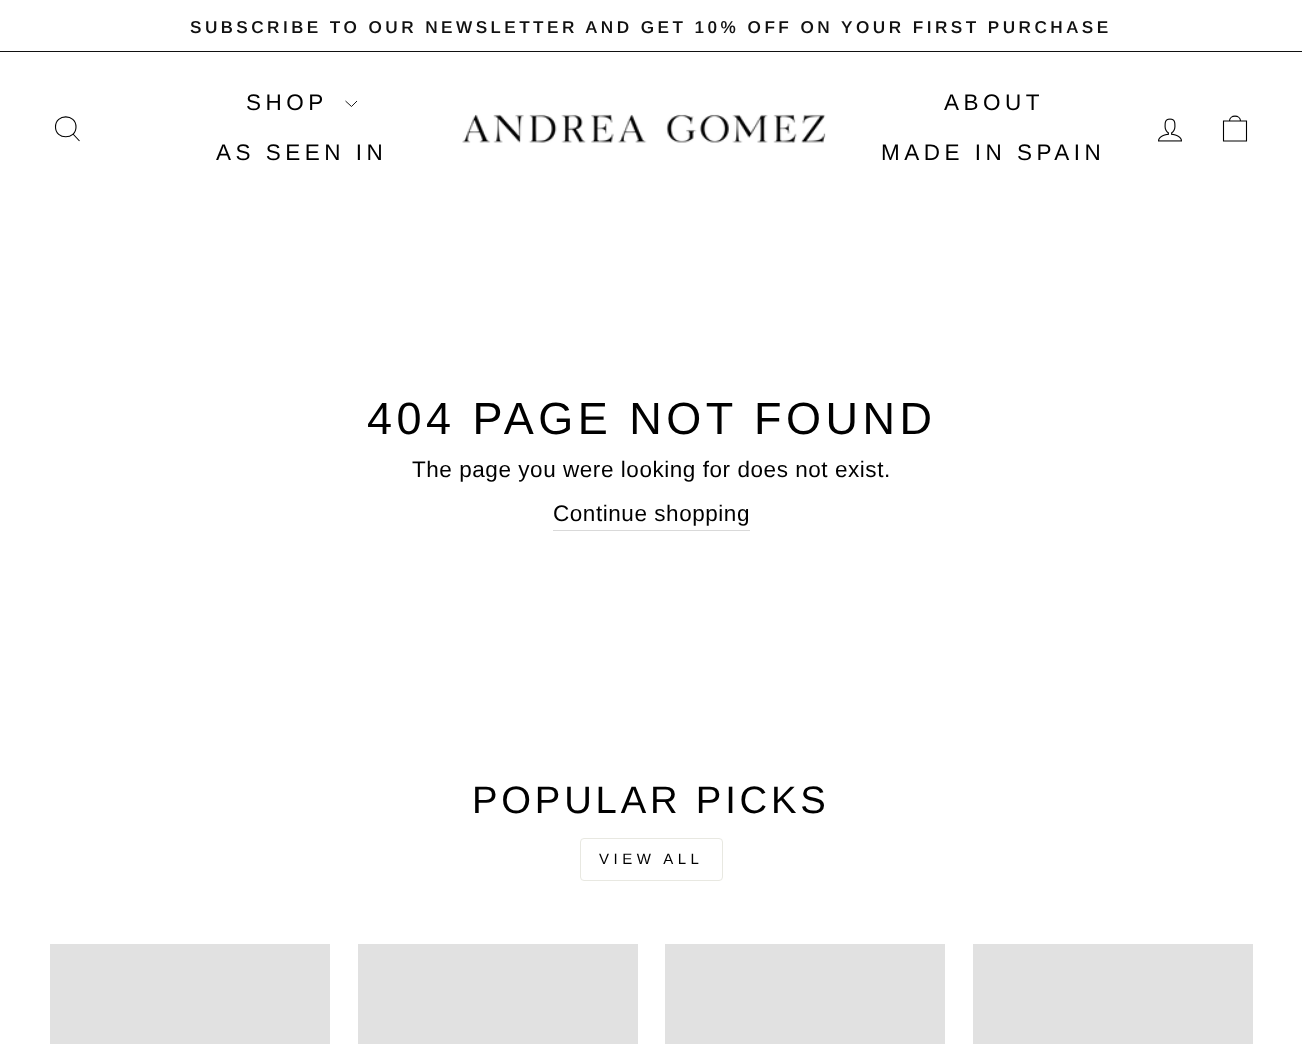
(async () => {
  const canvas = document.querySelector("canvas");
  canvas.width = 1302;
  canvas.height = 1044;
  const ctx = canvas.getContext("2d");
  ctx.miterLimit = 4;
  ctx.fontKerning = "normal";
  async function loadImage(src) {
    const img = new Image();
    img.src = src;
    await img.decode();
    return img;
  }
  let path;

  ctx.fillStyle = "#ffffff";
  ctx.fillRect(0, 0, 1302, 1044);
  ctx.fillStyle = "#111111";
  ctx.fillRect(0, 51, 1302, 1);
  ctx.fillStyle = "rgba(0, 0, 0, 0.2)";
  ctx.filter = "blur(0.5px)";
  ctx.beginPath();
  ctx.rect(0, 53, 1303, 151);
  ctx.fill();
  ctx.filter = "none";
  ctx.fillStyle = "#ffffff";
  ctx.fillRect(0, 53, 1302, 151);
  path = new Path2D("M76 127C76 140 55.5 140 55.5 127C55.5 113.5 76 113.5 76 127ZM79.5 141L73 134");
  ctx.strokeStyle = "#000000";
  ctx.lineWidth = 1.1;
  ctx.stroke(path);
  path = new Path2D("M345.5 101L351.5 106.5L357 101");
  ctx.lineWidth = 0.9;
  ctx.stroke(path);
  ctx.drawImage(await loadImage("img/1.png"), 462, 114, 364, 29);
  ctx.drawImage(await loadImage("img/2.png"), 1158, 118, 24, 24);
  path = new Path2D("M1223.5 121H1246.5V141H1223.5ZM1229.5 121C1229.5 114.5 1240.5 114.5 1240.5 121");
  ctx.lineWidth = 1.1;
  ctx.stroke(path);
  ctx.fillStyle = "#d9d9d9";
  ctx.fillRect(553, 530, 197, 1);
  ctx.beginPath();
  ctx.roundRect(580.5, 838.5, 142, 42, 3.5);
  ctx.strokeStyle = "#e8e8e1";
  ctx.lineWidth = 1;
  ctx.stroke();
  for (const [x, y, w, h, color] of [
    [50, 944, 280, 100, "#e1e1e1"],
    [358, 944, 280, 100, "#e1e1e1"],
    [665, 944, 280, 100, "#e1e1e1"],
    [973, 944, 280, 100, "#e1e1e1"],
  ]) {
    ctx.fillStyle = color;
    ctx.fillRect(x, y, w, h);
  }
  ctx.letterSpacing = "3.45px";
  ctx.font = "600 17.2px Arimo";
  ctx.fillStyle = "#111111";
  ctx.fillText("SUBSCRIBE TO OUR NEWSLETTER AND GET 10% OFF ON YOUR FIRST PURCHASE", 190, 33);
  ctx.letterSpacing = "4.5px";
  ctx.font = "22.5px Arimo";
  ctx.fillStyle = "#000000";
  for (const [text, x, y] of [
    ["SHOP", 246, 110],
    ["AS SEEN IN", 216, 160],
    ["ABOUT", 944, 110],
    ["MADE IN SPAIN", 881, 160],
  ]) {
    ctx.fillText(text, x, y);
  }
  ctx.font = "45px Arimo";
  ctx.fillText("404 PAGE NOT FOUND", 367, 434);
  ctx.letterSpacing = "0.55px";
  ctx.font = "22.5px Arimo";
  ctx.fillText("The page you were looking for does not exist.", 412, 477);
  ctx.fillText("Continue shopping", 553, 521);
  ctx.letterSpacing = "3.8px";
  ctx.font = "38.25px Arimo";
  ctx.fillText("POPULAR PICKS", 472, 813);
  ctx.letterSpacing = "4.5px";
  ctx.font = "15px Arimo";
  ctx.fillText("VIEW ALL", 599, 864);
})();
